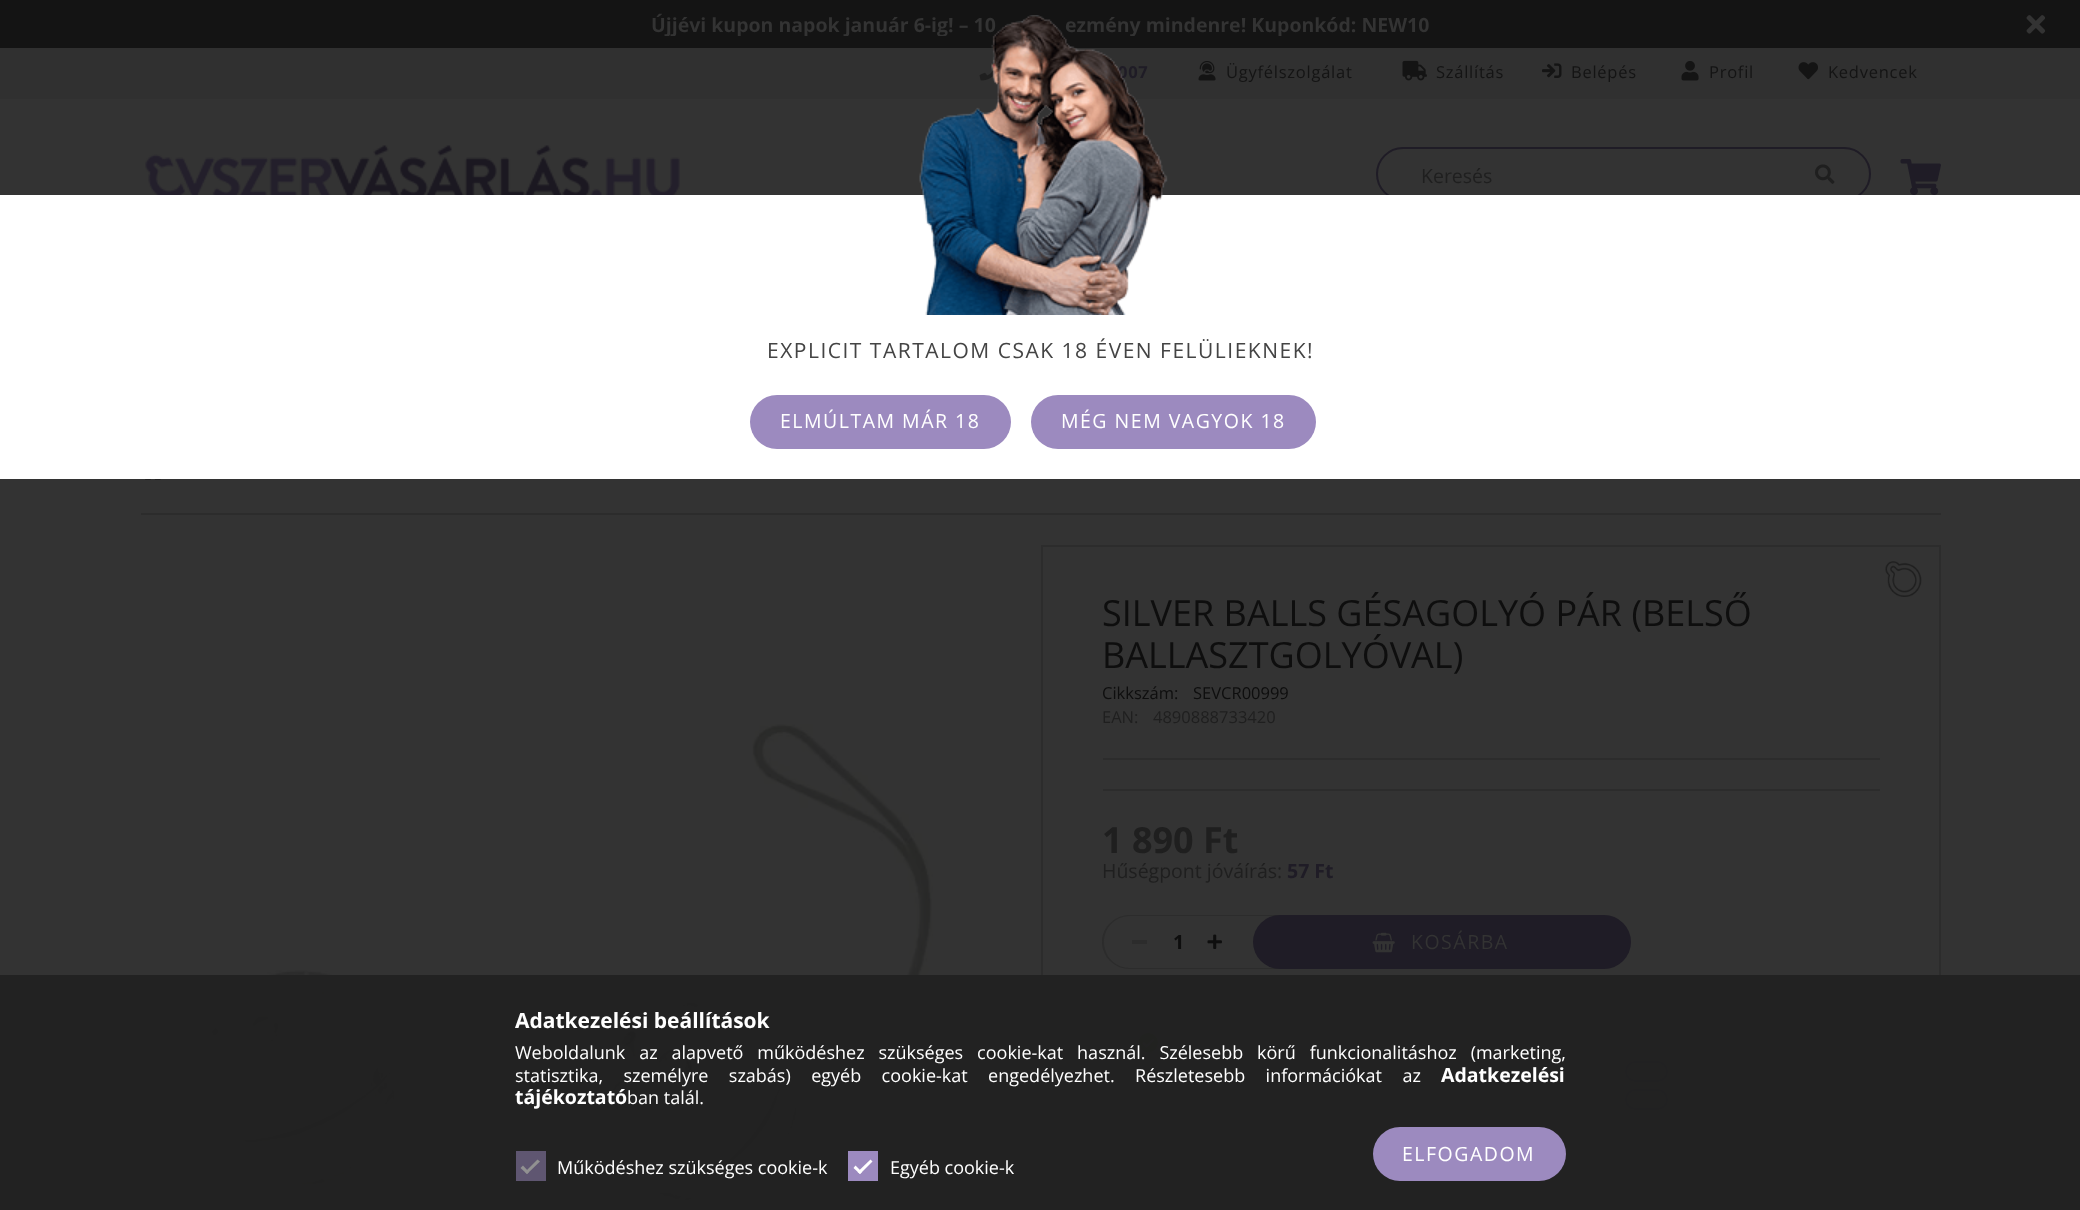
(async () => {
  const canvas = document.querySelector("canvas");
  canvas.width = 2080;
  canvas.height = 1210;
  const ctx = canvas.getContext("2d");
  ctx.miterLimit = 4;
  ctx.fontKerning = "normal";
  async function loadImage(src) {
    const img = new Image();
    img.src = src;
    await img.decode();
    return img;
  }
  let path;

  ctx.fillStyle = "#333333";
  ctx.fillRect(0, 0, 2080, 1210);
  ctx.fillStyle = "#141414";
  ctx.fillRect(0, 0, 2080, 48);
  ctx.drawImage(await loadImage("img/1.png"), 2026, 15, 20, 19);
  ctx.fillStyle = "#303030";
  ctx.fillRect(0, 48, 2080, 51);
  ctx.drawImage(await loadImage("img/2.png"), 979, 61, 16, 20);
  ctx.drawImage(await loadImage("img/3.png"), 1198, 61, 18, 20);
  ctx.drawImage(await loadImage("img/4.png"), 1402, 60, 25, 21);
  ctx.drawImage(await loadImage("img/5.png"), 1542, 63, 20, 15);
  ctx.drawImage(await loadImage("img/6.png"), 1681, 61, 18, 20);
  ctx.drawImage(await loadImage("img/7.png"), 1798, 62, 20, 18);
  ctx.drawImage(await loadImage("img/8.png"), 145, 145, 535, 50);
  ctx.beginPath();
  ctx.roundRect(1377, 148, 493, 52, 26);
  ctx.strokeStyle = "#1f1c26";
  ctx.lineWidth = 2;
  ctx.stroke();
  ctx.drawImage(await loadImage("img/9.png"), 1815, 164, 20, 20);
  ctx.drawImage(await loadImage("img/10.png"), 1900, 159, 41, 36);
  ctx.fillStyle = "#2c2c2c";
  ctx.fillRect(141, 513, 1800, 2);
  ctx.drawImage(await loadImage("img/11.png"), 145, 479, 16, 1);
  ctx.drawImage(await loadImage("img/12.png"), 190, 724, 743, 481);
  ctx.strokeStyle = "#2c2c2c";
  ctx.strokeRect(1042, 546, 898, 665);
  ctx.drawImage(await loadImage("img/13.png"), 1885, 561, 37, 36);
  ctx.fillRect(1103, 758, 777, 2);
  ctx.fillRect(1103, 789, 777, 2);
  path = new Path2D("M1130 915H1306V969H1130C1115 969 1102 957 1102 942C1102 927 1115 915 1130 915ZM1130 916H1306V968H1130C1115 968 1104 956 1104 942C1104 928 1115 916 1130 916Z");
  ctx.fill(path, "evenodd");
  ctx.fillRect(1132, 940, 15, 4);
  ctx.drawImage(await loadImage("img/14.png"), 1207, 934, 15, 15);
  ctx.fillStyle = "#1f1c26";
  ctx.beginPath();
  ctx.roundRect(1253, 915, 378, 54, 27);
  ctx.fill();
  ctx.drawImage(await loadImage("img/15.png"), 1372, 932, 23, 21);
  ctx.strokeStyle = "#292929";
  ctx.strokeRect(1104, 1000, 775, 144);
  ctx.drawImage(await loadImage("img/16.png"), 1138, 1033, 20, 20);
  ctx.beginPath();
  ctx.roundRect(1626, 1062, 41, 19, 9.5);
  ctx.strokeStyle = "#1f1c26";
  ctx.stroke();
  ctx.beginPath();
  ctx.roundRect(1626, 1090, 41, 19, 9.5);
  ctx.stroke();
  ctx.beginPath();
  ctx.roundRect(1378, 1194, 64, 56, 32);
  ctx.strokeStyle = "#303030";
  ctx.lineWidth = 8;
  ctx.stroke();
  ctx.beginPath();
  ctx.roundRect(1540, 1194, 64, 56, 32);
  ctx.stroke();
  ctx.fillStyle = "#ffffff";
  ctx.fillRect(0, 195, 2080, 284);
  ctx.fillStyle = "#9c8abf";
  ctx.beginPath();
  ctx.roundRect(750, 395, 261, 54, 27);
  ctx.fill();
  ctx.beginPath();
  ctx.roundRect(1031, 395, 285, 54, 27);
  ctx.fill();
  ctx.fillStyle = "rgba(34, 34, 34, 0.95)";
  ctx.fillRect(0, 975, 2080, 235);
  ctx.fillStyle = "#9c8abf";
  ctx.beginPath();
  ctx.roundRect(1373, 1127, 193, 54, 27);
  ctx.fill();
  ctx.fillStyle = "#5f5671";
  ctx.fillRect(516, 1151, 30, 30);
  ctx.fillStyle = "#919191";
  path = new Path2D("M525 1172L537.5 1159.5L540 1161.5L527 1174Z");
  ctx.fill(path);
  path = new Path2D("M520.5 1168L523 1165.5L529 1172L527 1174Z");
  ctx.fill(path);
  ctx.fillStyle = "#9c8abf";
  ctx.fillRect(848, 1151, 30, 30);
  ctx.fillStyle = "#ffffff";
  path = new Path2D("M857.5 1172L870.5 1159.5L872.5 1161.5L860 1174Z");
  ctx.fill(path);
  path = new Path2D("M853.5 1168L855.5 1165.5L862 1172L860 1174Z");
  ctx.fill(path);
  ctx.save();
  ctx.beginPath();
  ctx.rect(186, 12, 1710, 24);
  ctx.clip();
  ctx.font = "bold 19.5px Open Sans";
  ctx.fillStyle = "#333333";
  ctx.fillText("Újjévi kupon napok január 6-ig! – 10", 651, 32);
  ctx.fillText("ezmény mindenre! Kuponkód: NEW10", 1065, 32);
  ctx.restore();
  ctx.letterSpacing = "0.75px";
  ctx.font = "bold 16.5px Open Sans";
  ctx.fillStyle = "#1f1c26";
  ctx.fillText("007", 1118, 78);
  ctx.font = "16.5px Open Sans";
  ctx.fillStyle = "#141414";
  for (const [text, x, y] of [
    ["Ügyfélszolgálat", 1226, 78],
    ["Szállítás", 1436, 78],
    ["Belépés", 1571, 78],
    ["Profil", 1709, 78],
    ["Kedvencek", 1828, 78],
  ]) {
    ctx.fillText(text, x, y);
  }
  ctx.letterSpacing = "0px";
  ctx.font = "19.5px Open Sans";
  ctx.fillStyle = "#1f1f1f";
  ctx.fillText("Keresés", 1421, 183);
  ctx.font = "36px Open Sans";
  ctx.fillStyle = "#0e0e0e";
  ctx.fillText("SILVER BALLS GÉSAGOLYÓ PÁR (BELSŐ", 1102, 626);
  ctx.fillText("BALLASZTGOLYÓVAL)", 1102, 668);
  ctx.font = "16.5px Open Sans";
  ctx.fillText("Cikkszám:", 1102, 699);
  ctx.fillText("SEVCR00999", 1193, 699);
  ctx.fillStyle = "#1f1f1f";
  ctx.fillText("EAN:", 1102, 723);
  ctx.fillText("4890888733420", 1153, 723);
  ctx.font = "bold 36px Open Sans";
  ctx.fillText("1 890 Ft", 1102, 853);
  ctx.font = "19.5px Open Sans";
  ctx.fillText("Hűségpont jóváírás:", 1102, 878);
  ctx.font = "bold 19.5px Open Sans";
  ctx.fillStyle = "#1f1c26";
  ctx.fillText("57 Ft", 1287, 878);
  ctx.fillStyle = "#0e0e0e";
  ctx.fillText("1", 1173, 949);
  ctx.letterSpacing = "1.5px";
  ctx.font = "19.5px Open Sans";
  ctx.fillStyle = "#333333";
  ctx.fillText("KOSÁRBA", 1411, 949);
  ctx.drawImage(await loadImage("img/17.png"), 919, 15, 249, 300);
  ctx.font = "21px Open Sans";
  ctx.fillStyle = "#444444";
  ctx.fillText("EXPLICIT TARTALOM CSAK 18 ÉVEN FELÜLIEKNEK!", 767, 358);
  ctx.font = "19.5px Open Sans";
  ctx.fillStyle = "#ffffff";
  ctx.fillText("ELMÚLTAM MÁR 18", 780, 428);
  ctx.fillText("MÉG NEM VAGYOK 18", 1061, 428);
  ctx.letterSpacing = "0px";
  ctx.font = "bold 21px Open Sans";
  ctx.fillText("Adatkezelési beállítások", 515, 1028);
  ctx.wordSpacing = "9.25px";
  ctx.font = "18px Open Sans";
  ctx.fillText("Weboldalunk az alapvető működéshez szükséges cookie-kat használ. Szélesebb körű funkcionalitáshoz (marketing,", 515, 1059);
  ctx.wordSpacing = "15.75px";
  ctx.fillText("statisztika, személyre szabás) egyéb cookie-kat engedélyezhet. Részletesebb információkat az", 515, 1082);
  ctx.wordSpacing = "0px";
  ctx.font = "bold 19.5px Open Sans";
  ctx.fillText("Adatkezelési", 1441, 1082);
  ctx.fillText("tájékoztató", 515, 1104);
  ctx.font = "18px Open Sans";
  ctx.fillText("ban talál.", 627, 1104);
  ctx.letterSpacing = "1.5px";
  ctx.font = "19.5px Open Sans";
  ctx.fillText("ELFOGADOM", 1402, 1161);
  ctx.letterSpacing = "0px";
  ctx.font = "18px Open Sans";
  ctx.fillText("Működéshez szükséges cookie-k", 557, 1174);
  ctx.fillText("Egyéb cookie-k", 890, 1174);
})();
